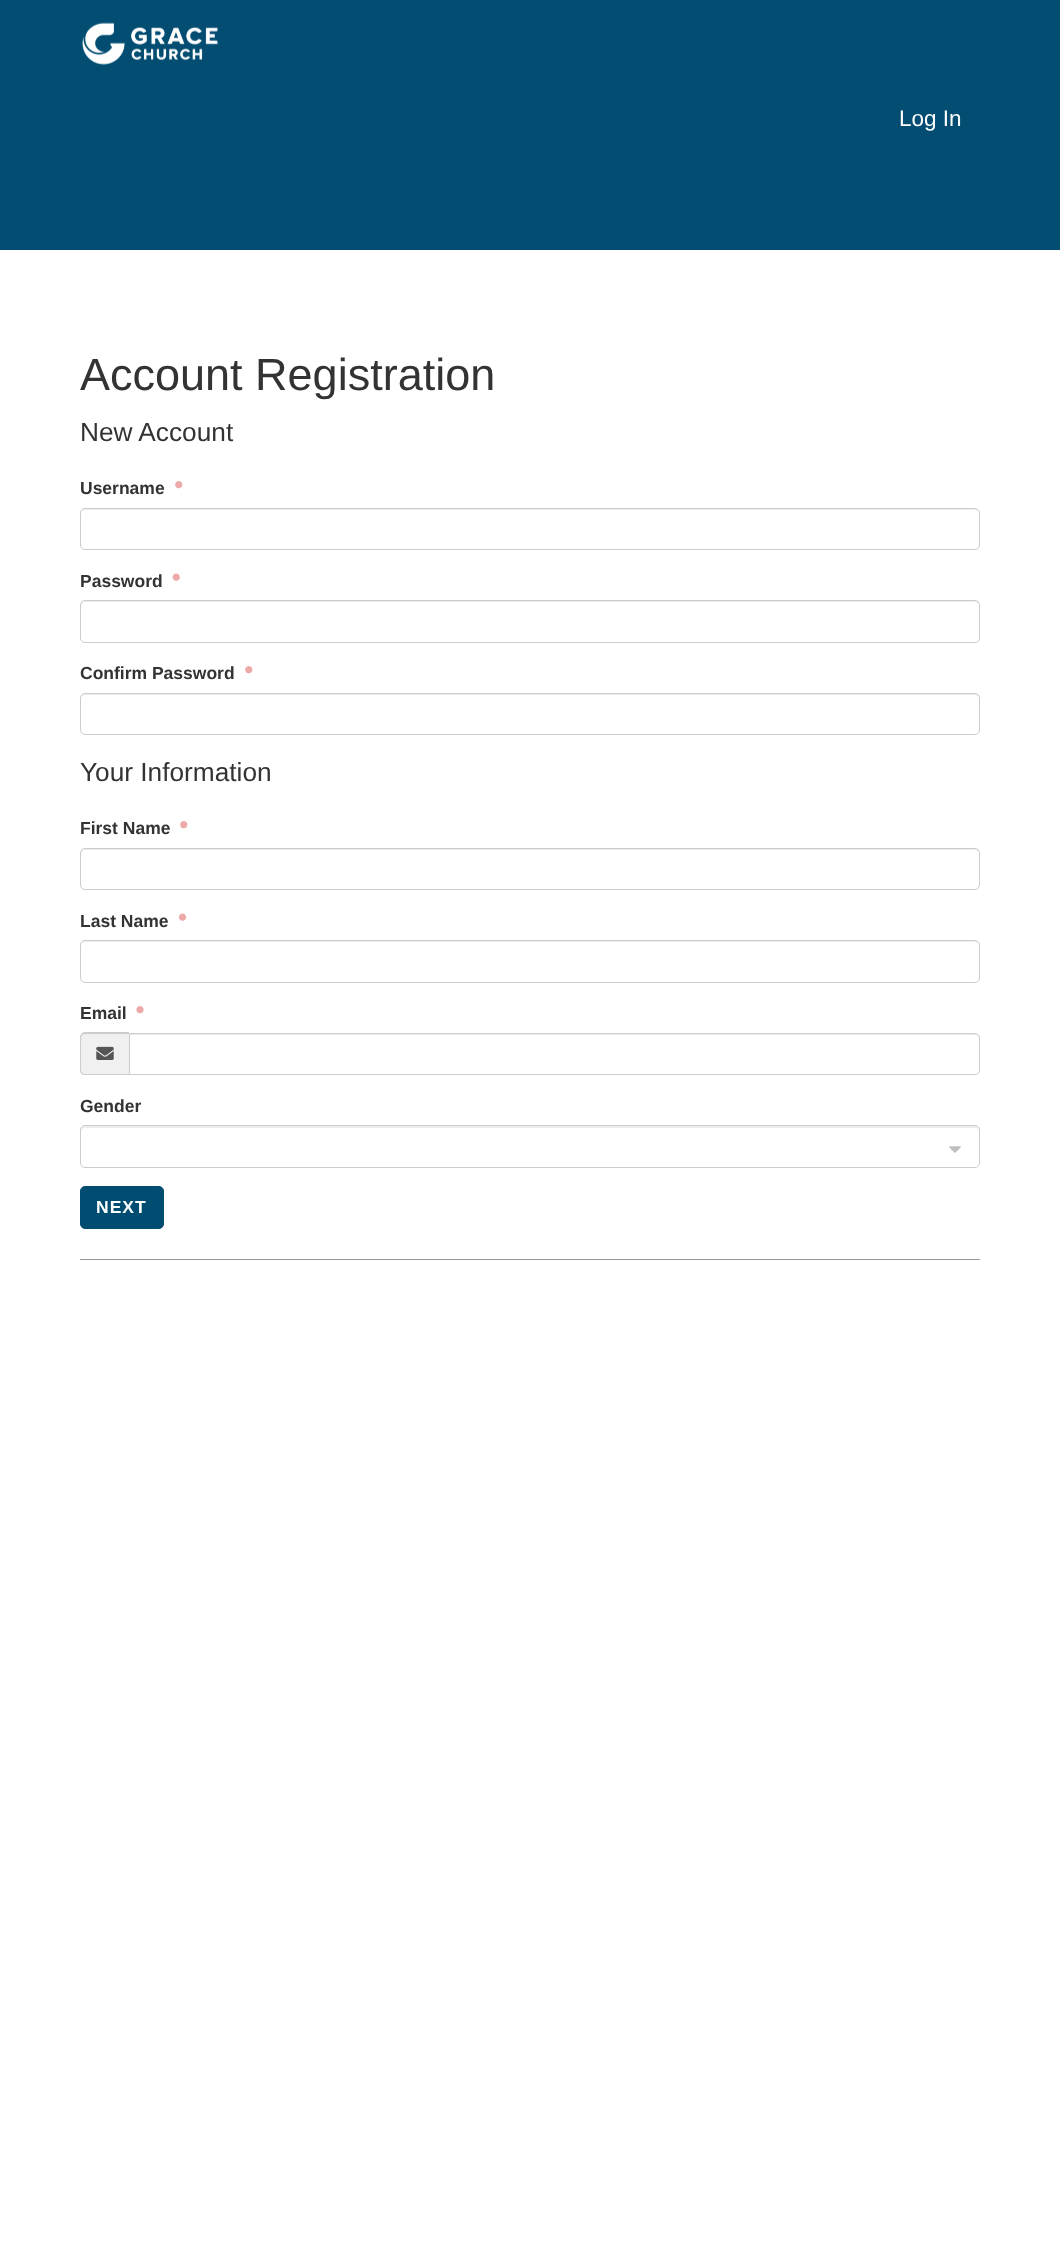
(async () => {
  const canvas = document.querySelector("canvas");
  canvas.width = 1060;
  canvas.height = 2242;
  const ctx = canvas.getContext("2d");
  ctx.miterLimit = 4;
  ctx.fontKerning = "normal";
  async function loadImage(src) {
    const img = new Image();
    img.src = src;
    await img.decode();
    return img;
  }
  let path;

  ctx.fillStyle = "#ffffff";
  ctx.fillRect(0, 0, 1060, 2242);
  ctx.fillStyle = "#024d71";
  ctx.fillRect(0, 0, 1060, 250);
  ctx.drawImage(await loadImage("img/1.png"), 82, 22, 136, 43);
  ctx.drawImage(await loadImage("img/2.png"), 175, 481, 8, 8);
  ctx.fillStyle = "#ececec";
  path = new Path2D("M85 510H975C977 510 979 512 979 514C979 511 978 509 975 509H85C82 509 81 511 81 514C81 512 83 510 85 510Z");
  ctx.fill(path);
  ctx.beginPath();
  ctx.roundRect(80.5, 508.5, 899, 41, 4.5);
  ctx.strokeStyle = "#cccccc";
  ctx.stroke();
  ctx.drawImage(await loadImage("img/3.png"), 172, 573, 8, 8);
  path = new Path2D("M85 602H975C977 602 979 604 979 606C979 603 978 601 975 601H85C82 601 81 603 81 606C81 604 83 602 85 602Z");
  ctx.fill(path);
  ctx.beginPath();
  ctx.roundRect(80.5, 600.5, 899, 42, 4.5);
  ctx.stroke();
  ctx.drawImage(await loadImage("img/2.png"), 245, 666, 8, 8);
  path = new Path2D("M85 695H975C977 695 979 697 979 699C979 696 978 694 975 694H85C82 694 81 696 81 699C81 697 83 695 85 695Z");
  ctx.fill(path);
  ctx.beginPath();
  ctx.roundRect(80.5, 693.5, 899, 41, 4.5);
  ctx.stroke();
  ctx.drawImage(await loadImage("img/2.png"), 180, 821, 8, 8);
  path = new Path2D("M85 850H975C977 850 979 852 979 854C979 851 978 849 975 849H85C82 849 81 851 81 854C81 852 83 850 85 850Z");
  ctx.fill(path);
  ctx.beginPath();
  ctx.roundRect(80.5, 848.5, 899, 41, 4.5);
  ctx.stroke();
  ctx.drawImage(await loadImage("img/4.png"), 178, 913, 9, 8);
  path = new Path2D("M85 942H975C977 942 979 944 979 946C979 943 978 941 975 941H85C82 941 81 943 81 946C81 944 83 942 85 942Z");
  ctx.fill(path);
  ctx.beginPath();
  ctx.roundRect(80.5, 940.5, 899, 42, 4.5);
  ctx.stroke();
  ctx.drawImage(await loadImage("img/5.png"), 136, 1006, 8, 8);
  ctx.fillStyle = "#f0f0f0";
  ctx.beginPath();
  ctx.roundRect(80, 1033, 49, 42, [5, 0, 0, 5]);
  ctx.fill();
  ctx.fillStyle = "#cccccc";
  path = new Path2D("M85 1032H129V1075H85C82 1075 80 1073 80 1070V1038C80 1035 82 1032 85 1032ZM85 1034H129V1074H85C83 1074 81 1072 81 1070V1038C81 1035 83 1034 85 1034Z");
  ctx.fill(path, "evenodd");
  ctx.drawImage(await loadImage("img/6.png"), 96, 1046, 18, 14);
  ctx.fillStyle = "#ececec";
  path = new Path2D("M130 1035H975C977 1035 979 1037 979 1039C979 1036 978 1034 975 1034H130Z");
  ctx.fill(path);
  ctx.beginPath();
  ctx.roundRect(129.5, 1033.5, 850, 41, [0, 4.5, 4.5, 0]);
  ctx.stroke();
  path = new Path2D("M85 1128H975C977 1128 979 1129 979 1131C979 1128 978 1126 975 1126H85C82 1126 81 1128 81 1131C81 1129 83 1128 85 1128Z");
  ctx.fill(path);
  ctx.beginPath();
  ctx.roundRect(80.5, 1125.5, 899, 42, 4.5);
  ctx.stroke();
  ctx.drawImage(await loadImage("img/7.png"), 949, 1146, 12, 7);
  ctx.fillStyle = "#004d71";
  ctx.beginPath();
  ctx.roundRect(80.5, 1186.5, 83, 42, 4.5);
  ctx.fill();
  ctx.strokeStyle = "#004d71";
  ctx.stroke();
  ctx.fillStyle = "#999999";
  ctx.fillRect(80, 1259, 900, 1);
  ctx.font = "22.5px Liberation Sans";
  ctx.fillStyle = "#ffffff";
  ctx.fillText("Log In", 899, 126);
  ctx.font = "45px Liberation Sans";
  ctx.fillStyle = "#333333";
  ctx.fillText("Account Registration", 80, 390);
  ctx.font = "26.25px Liberation Sans";
  ctx.fillText("New Account", 80, 441);
  ctx.font = "bold 17.5px Liberation Sans";
  for (const [text, x, y] of [
    ["Username", 80, 494],
    ["Password", 80, 587],
    ["Confirm Password", 80, 679],
  ]) {
    ctx.fillText(text, x, y);
  }
  ctx.font = "26.25px Liberation Sans";
  ctx.fillText("Your Information", 80, 781);
  ctx.font = "bold 17.5px Liberation Sans";
  for (const [text, x, y] of [
    ["First Name", 80, 834],
    ["Last Name", 80, 927],
    ["Email", 80, 1019],
    ["Gender", 80, 1112],
  ]) {
    ctx.fillText(text, x, y);
  }
  ctx.letterSpacing = "1px";
  ctx.fillStyle = "#ffffff";
  ctx.fillText("NEXT", 96, 1213);
})();
